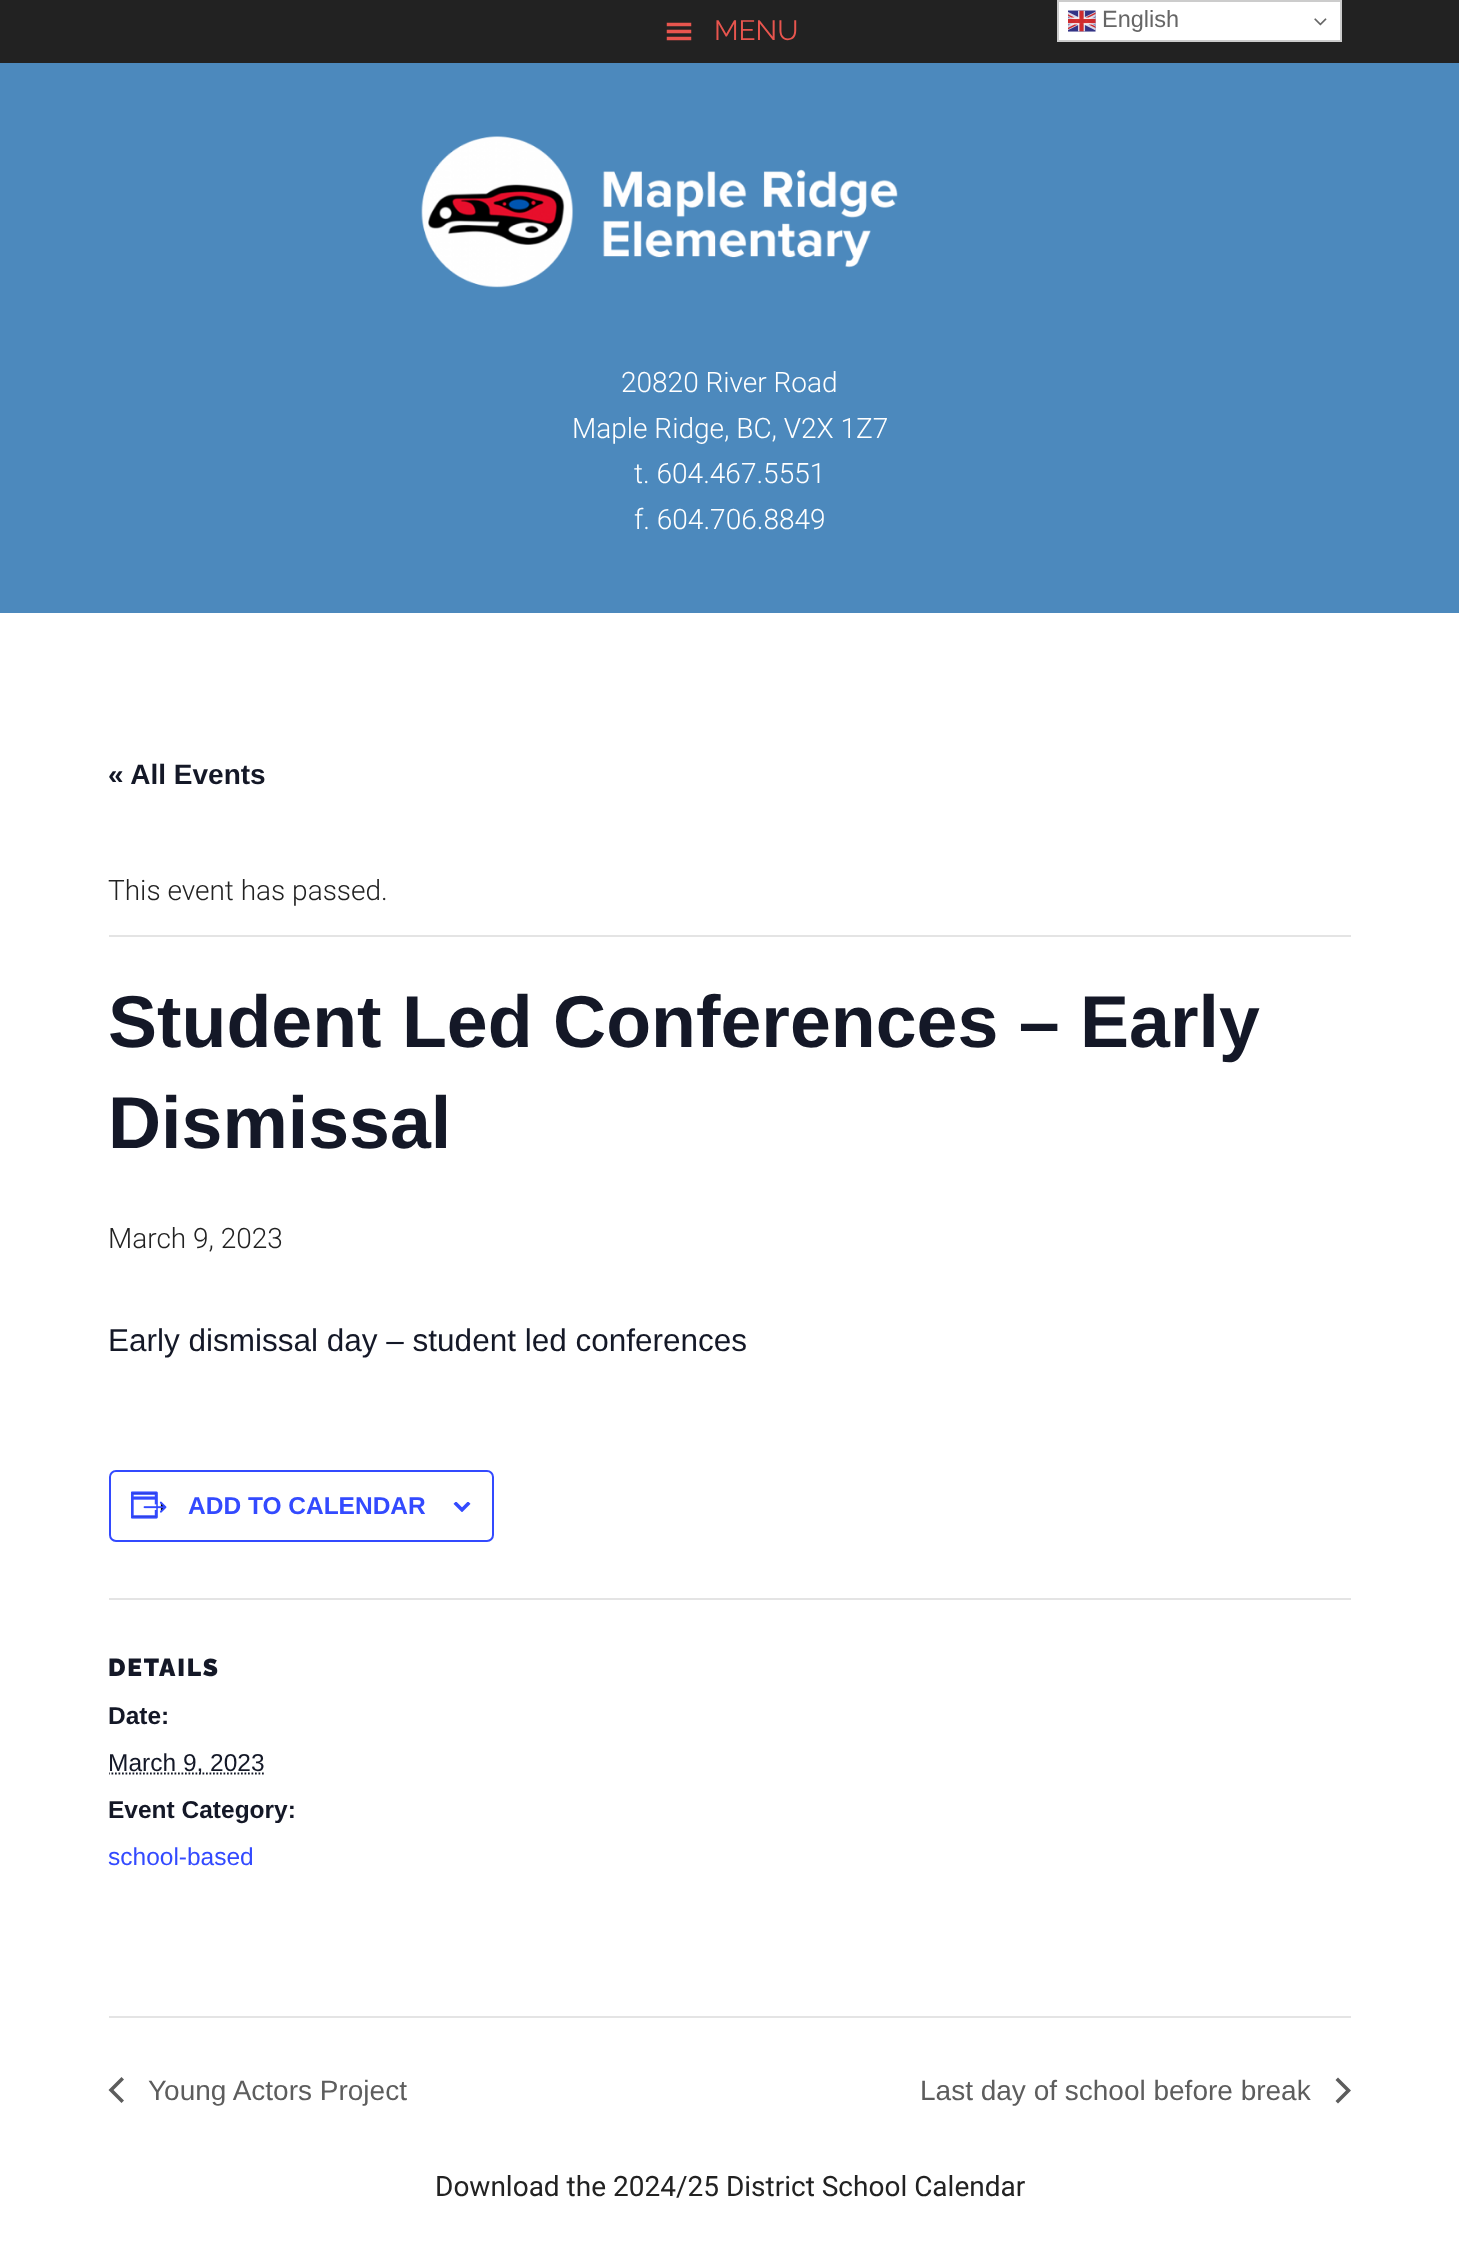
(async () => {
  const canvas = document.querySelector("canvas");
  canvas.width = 1459;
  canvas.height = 2256;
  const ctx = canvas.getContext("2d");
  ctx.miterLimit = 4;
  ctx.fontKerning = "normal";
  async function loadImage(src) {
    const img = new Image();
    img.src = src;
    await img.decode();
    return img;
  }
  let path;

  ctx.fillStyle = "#ffffff";
  ctx.fillRect(0, 0, 1459, 2256);
  ctx.fillStyle = "#222222";
  ctx.fillRect(0, 0, 1459, 63);
  ctx.fillStyle = "#ffffff";
  ctx.beginPath();
  ctx.rect(1058, 1, 283, 40);
  ctx.fill();
  ctx.strokeStyle = "#cccccc";
  ctx.lineWidth = 2;
  ctx.stroke();
  ctx.drawImage(await loadImage("img/1.png"), 1068, 10, 28, 22);
  ctx.drawImage(await loadImage("img/2.png"), 1314, 18, 13, 8);
  ctx.drawImage(await loadImage("img/3.png"), 666, 22, 26, 19);
  ctx.fillStyle = "#4c89bd";
  ctx.fillRect(0, 63, 1459, 550);
  ctx.drawImage(await loadImage("img/4.png"), 421, 136, 477, 152);
  ctx.fillStyle = "#e4e4e4";
  ctx.fillRect(109, 935, 1242, 2);
  ctx.beginPath();
  ctx.roundRect(110, 1471, 383, 70, 6);
  ctx.strokeStyle = "#334aff";
  ctx.stroke();
  ctx.drawImage(await loadImage("img/5.png"), 131, 1491, 36, 28);
  ctx.drawImage(await loadImage("img/6.png"), 453, 1502, 18, 10);
  ctx.fillRect(109, 1598, 1242, 2);
  ctx.save();
  ctx.beginPath();
  ctx.rect(109, 1318, 1242, 593);
  ctx.clip();
  path = new Path2D("M108 1773.5H264.5");
  ctx.strokeStyle = "#141827";
  ctx.lineWidth = 1.8;
  ctx.setLineDash([1.75, 1.75]);
  ctx.stroke(path);
  ctx.restore();
  ctx.fillRect(109, 2016, 1242, 2);
  ctx.fillStyle = "#5d5d5d";
  path = new Path2D("M124 2100.5L121.5 2103L108.5 2090L121.5 2077L124 2079.5L113.5 2090Z");
  ctx.fill(path);
  path = new Path2D("M1335.5 2080L1338 2077.5L1351 2090.5L1338 2103.5L1335.5 2101L1346 2090.5Z");
  ctx.fill(path);
  ctx.font = "23.5px Liberation Sans";
  ctx.fillStyle = "#666666";
  ctx.fillText("English", 1102, 27);
  ctx.font = "28px Raleway";
  ctx.fillStyle = "#e8554e";
  ctx.fillText("MENU", 714, 40);
  ctx.font = "300 28px Roboto";
  ctx.fillStyle = "#ffffff";
  for (const [text, x, y] of [
    ["20820 River Road", 621, 392],
    ["Maple Ridge, BC, V2X 1Z7", 572, 438],
    ["t. 604.467.5551", 634, 483],
    ["f. 604.706.8849", 634, 529],
  ]) {
    ctx.fillText(text, x, y);
  }
  ctx.font = "bold 28px Liberation Sans";
  ctx.fillStyle = "#141827";
  ctx.fillText("« All Events", 108, 784);
  ctx.font = "300 28px Roboto";
  ctx.fillStyle = "#222222";
  ctx.fillText("This event has passed.", 108, 900);
  ctx.font = "bold 73.5px Liberation Sans";
  ctx.fillStyle = "#141827";
  ctx.fillText("Student Led Conferences – Early", 108, 1047);
  ctx.fillText("Dismissal", 108, 1148);
  ctx.font = "300 28px Roboto";
  ctx.fillStyle = "#222222";
  ctx.fillText("March 9, 2023", 108, 1248);
  ctx.font = "31.5px Liberation Sans";
  ctx.fillStyle = "#141827";
  ctx.fillText("Early dismissal day – student led conferences", 108, 1351);
  ctx.font = "bold 24.5px Liberation Sans";
  ctx.fillStyle = "#334aff";
  ctx.fillText("ADD TO CALENDAR", 188, 1514);
  ctx.letterSpacing = "1.75px";
  ctx.font = "900 24.5px Raleway";
  ctx.fillStyle = "#141827";
  ctx.fillText("DETAILS", 108, 1676);
  ctx.letterSpacing = "0px";
  ctx.font = "bold 24.5px Liberation Sans";
  ctx.fillText("Date:", 108, 1724);
  ctx.font = "24.5px Liberation Sans";
  ctx.fillText("March 9, 2023", 108, 1771);
  ctx.font = "bold 24.5px Liberation Sans";
  ctx.fillText("Event Category:", 108, 1818);
  ctx.font = "24.5px Liberation Sans";
  ctx.fillStyle = "#334aff";
  ctx.fillText("school-based", 108, 1865);
  ctx.font = "28px Liberation Sans";
  ctx.fillStyle = "#5d5d5d";
  ctx.fillText("Young Actors Project", 148, 2100);
  ctx.fillText("Last day of school before break", 920, 2100);
  ctx.font = "28px Roboto";
  ctx.fillStyle = "#222222";
  ctx.fillText("Download the 2024/25 District School Calendar", 435, 2196);
})();
